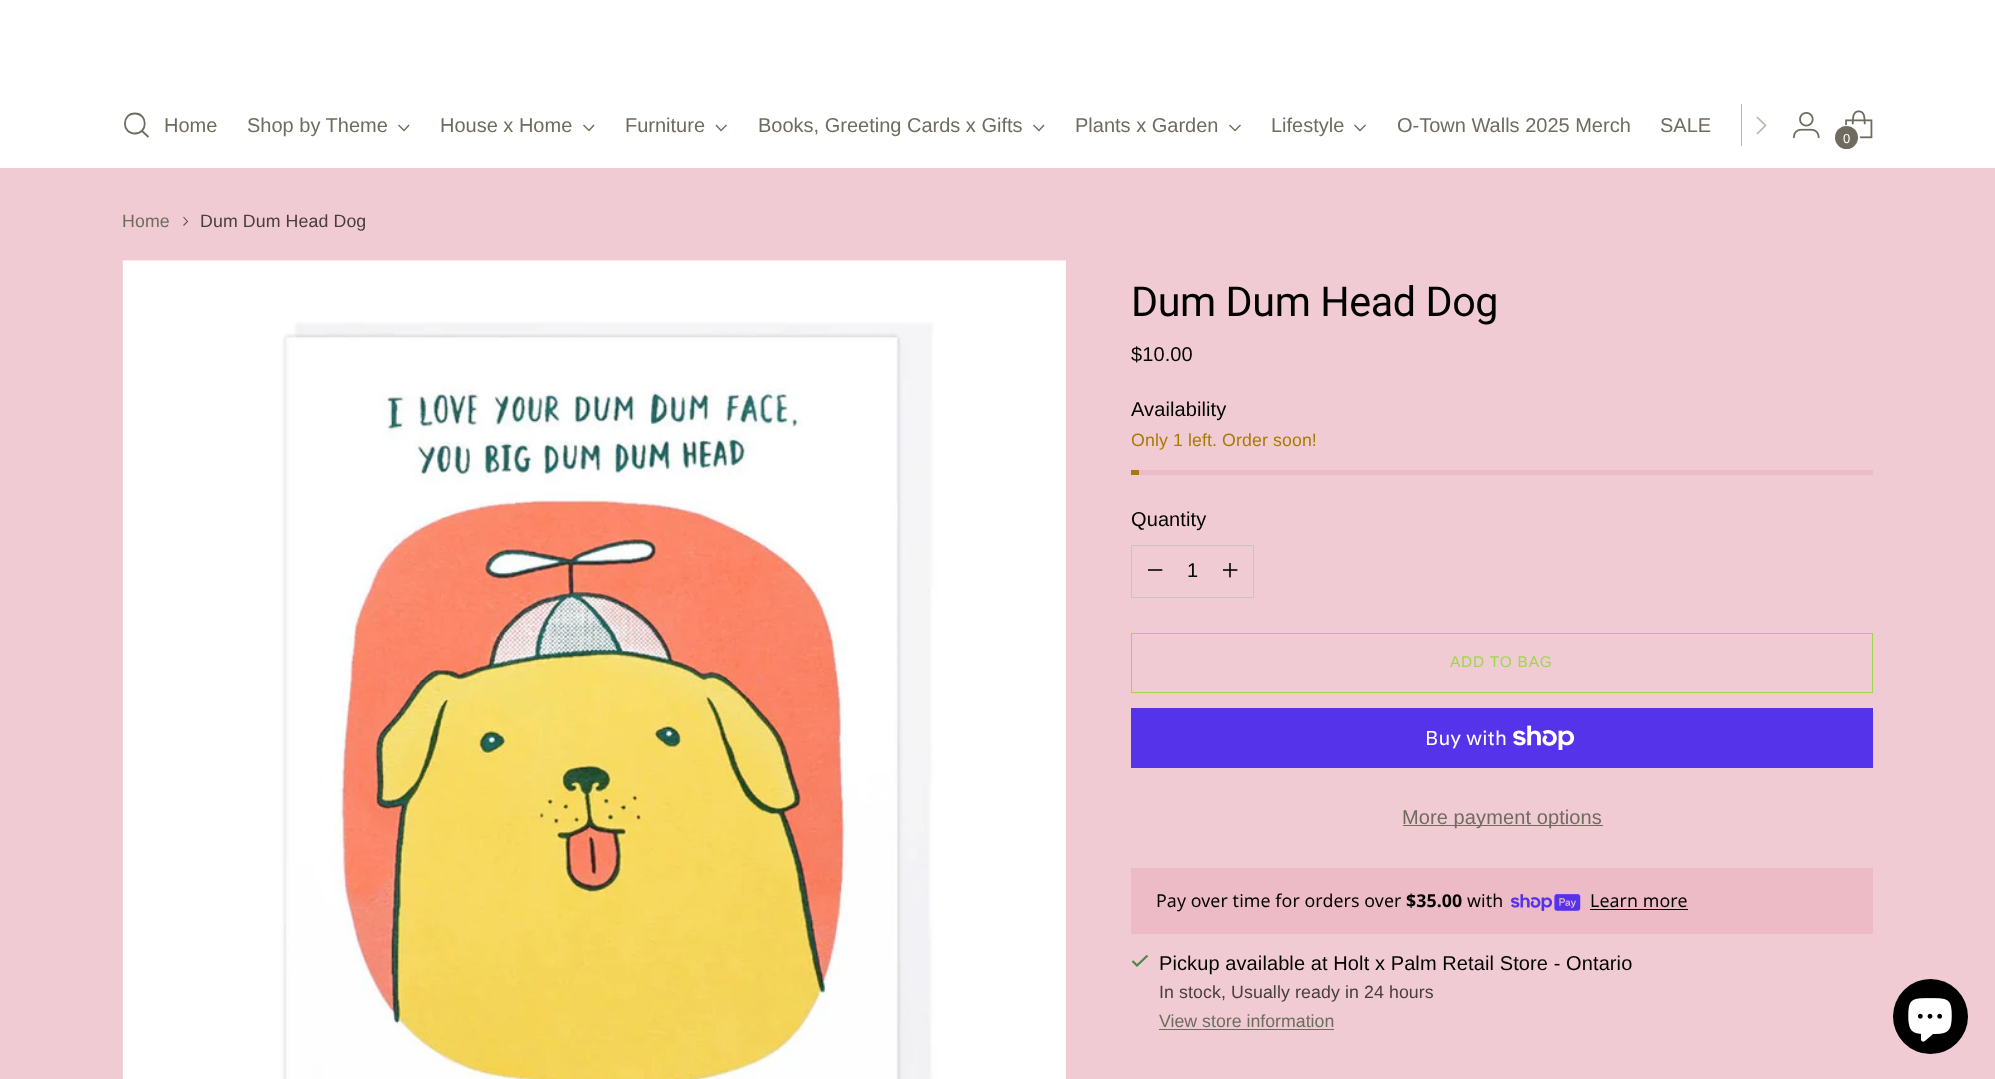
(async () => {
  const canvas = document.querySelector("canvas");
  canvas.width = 1995;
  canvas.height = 1079;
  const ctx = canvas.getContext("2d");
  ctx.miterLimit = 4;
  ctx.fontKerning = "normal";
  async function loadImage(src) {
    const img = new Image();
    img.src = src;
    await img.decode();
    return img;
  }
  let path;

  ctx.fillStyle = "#f1cbd3";
  ctx.fillRect(0, 0, 1995, 1079);
  ctx.fillStyle = "#ffffff";
  ctx.fillRect(0, 0, 1995, 168);
  path = new Path2D("M135 133.5C148 133.5 148 113.5 135 113.5C121.5 113.5 121.5 133.5 135 133.5Z");
  ctx.strokeStyle = "#706b5f";
  ctx.lineWidth = 1.8;
  ctx.lineCap = "round";
  ctx.stroke(path);
  path = new Path2D("M142 131L148.5 137");
  ctx.lineCap = "butt";
  ctx.stroke(path);
  path = new Path2D("M398.5 125L404 130.5L409 125");
  ctx.lineWidth = 1.4;
  ctx.stroke(path);
  path = new Path2D("M583.5 125L589 130.5L594 125");
  ctx.stroke(path);
  path = new Path2D("M716 125L721 130.5L726.5 125");
  ctx.stroke(path);
  path = new Path2D("M1033.5 125L1039 130.5L1044 125");
  ctx.stroke(path);
  path = new Path2D("M1229.5 125L1235 130.5L1240.5 125");
  ctx.stroke(path);
  path = new Path2D("M1354.5 125L1360 130.5L1365.5 125");
  ctx.stroke(path);
  ctx.fillStyle = "#b8b5af";
  ctx.fillRect(1741, 104, 1, 42);
  path = new Path2D("M1757 134L1765.5 125.5L1757 117");
  ctx.strokeStyle = "#b8b5af";
  ctx.lineWidth = 1.7;
  ctx.stroke(path);
  ctx.drawImage(await loadImage("img/1.png"), 1792, 112, 28, 26);
  ctx.drawImage(await loadImage("img/2.png"), 1845, 110, 28, 29);
  ctx.beginPath();
  ctx.arc(1847, 138, 12, 0, Math.PI * 2);
  ctx.strokeStyle = "#ffffff";
  ctx.lineWidth = 2;
  ctx.stroke();
  ctx.fillStyle = "#706b5f";
  ctx.beginPath();
  ctx.arc(1846.5, 137.5, 11.5, 0, Math.PI * 2);
  ctx.fill();
  path = new Path2D("M183.5 225.5L187.5 221.5L183.5 217");
  ctx.strokeStyle = "#605154";
  ctx.lineWidth = 1.1;
  ctx.stroke(path);
  ctx.drawImage(await loadImage("img/3.png"), 122, 260, 944, 819);
  ctx.fillStyle = "#edbbc5";
  ctx.fillRect(1131, 470, 742, 5);
  ctx.fillStyle = "#a77a06";
  ctx.fillRect(1131, 470, 8, 5);
  ctx.strokeStyle = "#c9c5be";
  ctx.lineWidth = 1;
  ctx.strokeRect(1131.5, 545.5, 122, 52);
  ctx.drawImage(await loadImage("img/4.png"), 1148, 569, 15, 2);
  ctx.drawImage(await loadImage("img/5.png"), 1223, 563, 15, 15);
  ctx.strokeStyle = "#9ed650";
  ctx.strokeRect(1131.5, 633.5, 741, 59);
  ctx.fillStyle = "#5433eb";
  ctx.fillRect(1131, 708, 742, 60);
  ctx.drawImage(await loadImage("img/6.png"), 1513, 725, 62, 25);
  ctx.fillStyle = "#706b5f";
  ctx.fillRect(1403, 825, 200, 1);
  ctx.fillStyle = "#edbbc5";
  ctx.fillRect(1131, 868, 742, 66);
  ctx.drawImage(await loadImage("img/7.png"), 1511, 894, 70, 17);
  ctx.fillStyle = "#000000";
  ctx.fillRect(1590, 909, 98, 1);
  path = new Path2D("M1132.5 961L1137 965.5L1147.5 955.5");
  ctx.strokeStyle = "#478947";
  ctx.lineWidth = 2.2;
  ctx.stroke(path);
  ctx.fillStyle = "#706b5f";
  ctx.fillRect(1159, 1029, 175, 1);
  ctx.fillStyle = "#000000";
  ctx.beginPath();
  ctx.arc(1930.5, 1016.5, 37.5, 0, Math.PI * 2);
  ctx.fill();
  ctx.drawImage(await loadImage("img/8.png"), 1908, 998, 44, 44);
  ctx.font = "20px Arimo";
  ctx.fillStyle = "#706b5f";
  for (const [text, x, y] of [
    ["Home", 164, 132],
    ["Shop by Theme", 247, 132],
    ["House x Home", 440, 132],
    ["Furniture", 625, 132],
    ["Books, Greeting Cards x Gifts", 758, 132],
    ["Plants x Garden", 1075, 132],
    ["Lifestyle", 1271, 132],
    ["O-Town Walls 2025 Merch", 1397, 132],
    ["SALE", 1660, 132],
  ]) {
    ctx.fillText(text, x, y);
  }
  ctx.letterSpacing = "0.1px";
  ctx.font = "13px Arimo";
  ctx.fillStyle = "#ffffff";
  ctx.fillText("0", 1843, 143);
  ctx.font = "17.75px Arimo";
  ctx.fillStyle = "#706b5f";
  ctx.fillText("Home", 122, 227);
  ctx.fillStyle = "#483d3f";
  ctx.fillText("Dum Dum Head Dog", 200, 227);
  ctx.letterSpacing = "-0.4px";
  ctx.font = "41.25px Roboto";
  ctx.fillStyle = "#000000";
  ctx.fillText("Dum Dum Head Dog", 1131, 316);
  ctx.letterSpacing = "0.1px";
  ctx.font = "20px Arimo";
  ctx.fillText("$10.00", 1131, 361);
  ctx.fillText("Availability", 1131, 416);
  ctx.font = "17.75px Arimo";
  ctx.fillStyle = "#a77a06";
  ctx.fillText("Only 1 left. Order soon!", 1131, 446);
  ctx.font = "20px Arimo";
  ctx.fillStyle = "#000000";
  ctx.fillText("Quantity", 1131, 526);
  ctx.letterSpacing = "0px";
  ctx.fillText("1", 1187, 577);
  ctx.letterSpacing = "0.75px";
  ctx.font = "15.5px Arimo";
  ctx.fillStyle = "#9ed650";
  ctx.fillText("ADD TO BAG", 1450, 667);
  ctx.letterSpacing = "0.1px";
  ctx.font = "20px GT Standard";
  ctx.fillStyle = "#ffffff";
  ctx.fillText("Buy with", 1425, 745);
  ctx.font = "20px Arimo";
  ctx.fillStyle = "#706b5f";
  ctx.fillText("More payment options", 1402, 824);
  ctx.font = "17.75px Noto Sans";
  ctx.fillStyle = "#000000";
  ctx.fillText("Pay over time for orders over", 1156, 907);
  ctx.font = "bold 17.75px Noto Sans";
  ctx.fillText("$35.00", 1406, 907);
  ctx.font = "17.75px Noto Sans";
  ctx.fillText("with", 1467, 907);
  ctx.fillText("Learn more", 1590, 907);
  ctx.font = "20px Arimo";
  ctx.fillText("Pickup available at Holt x Palm Retail Store - Ontario", 1159, 970);
  ctx.font = "17.75px Arimo";
  ctx.fillStyle = "#483d3f";
  ctx.fillText("In stock, Usually ready in 24 hours", 1159, 998);
  ctx.letterSpacing = "0px";
  ctx.fillStyle = "#706b5f";
  ctx.fillText("View store information", 1159, 1027);
})();
